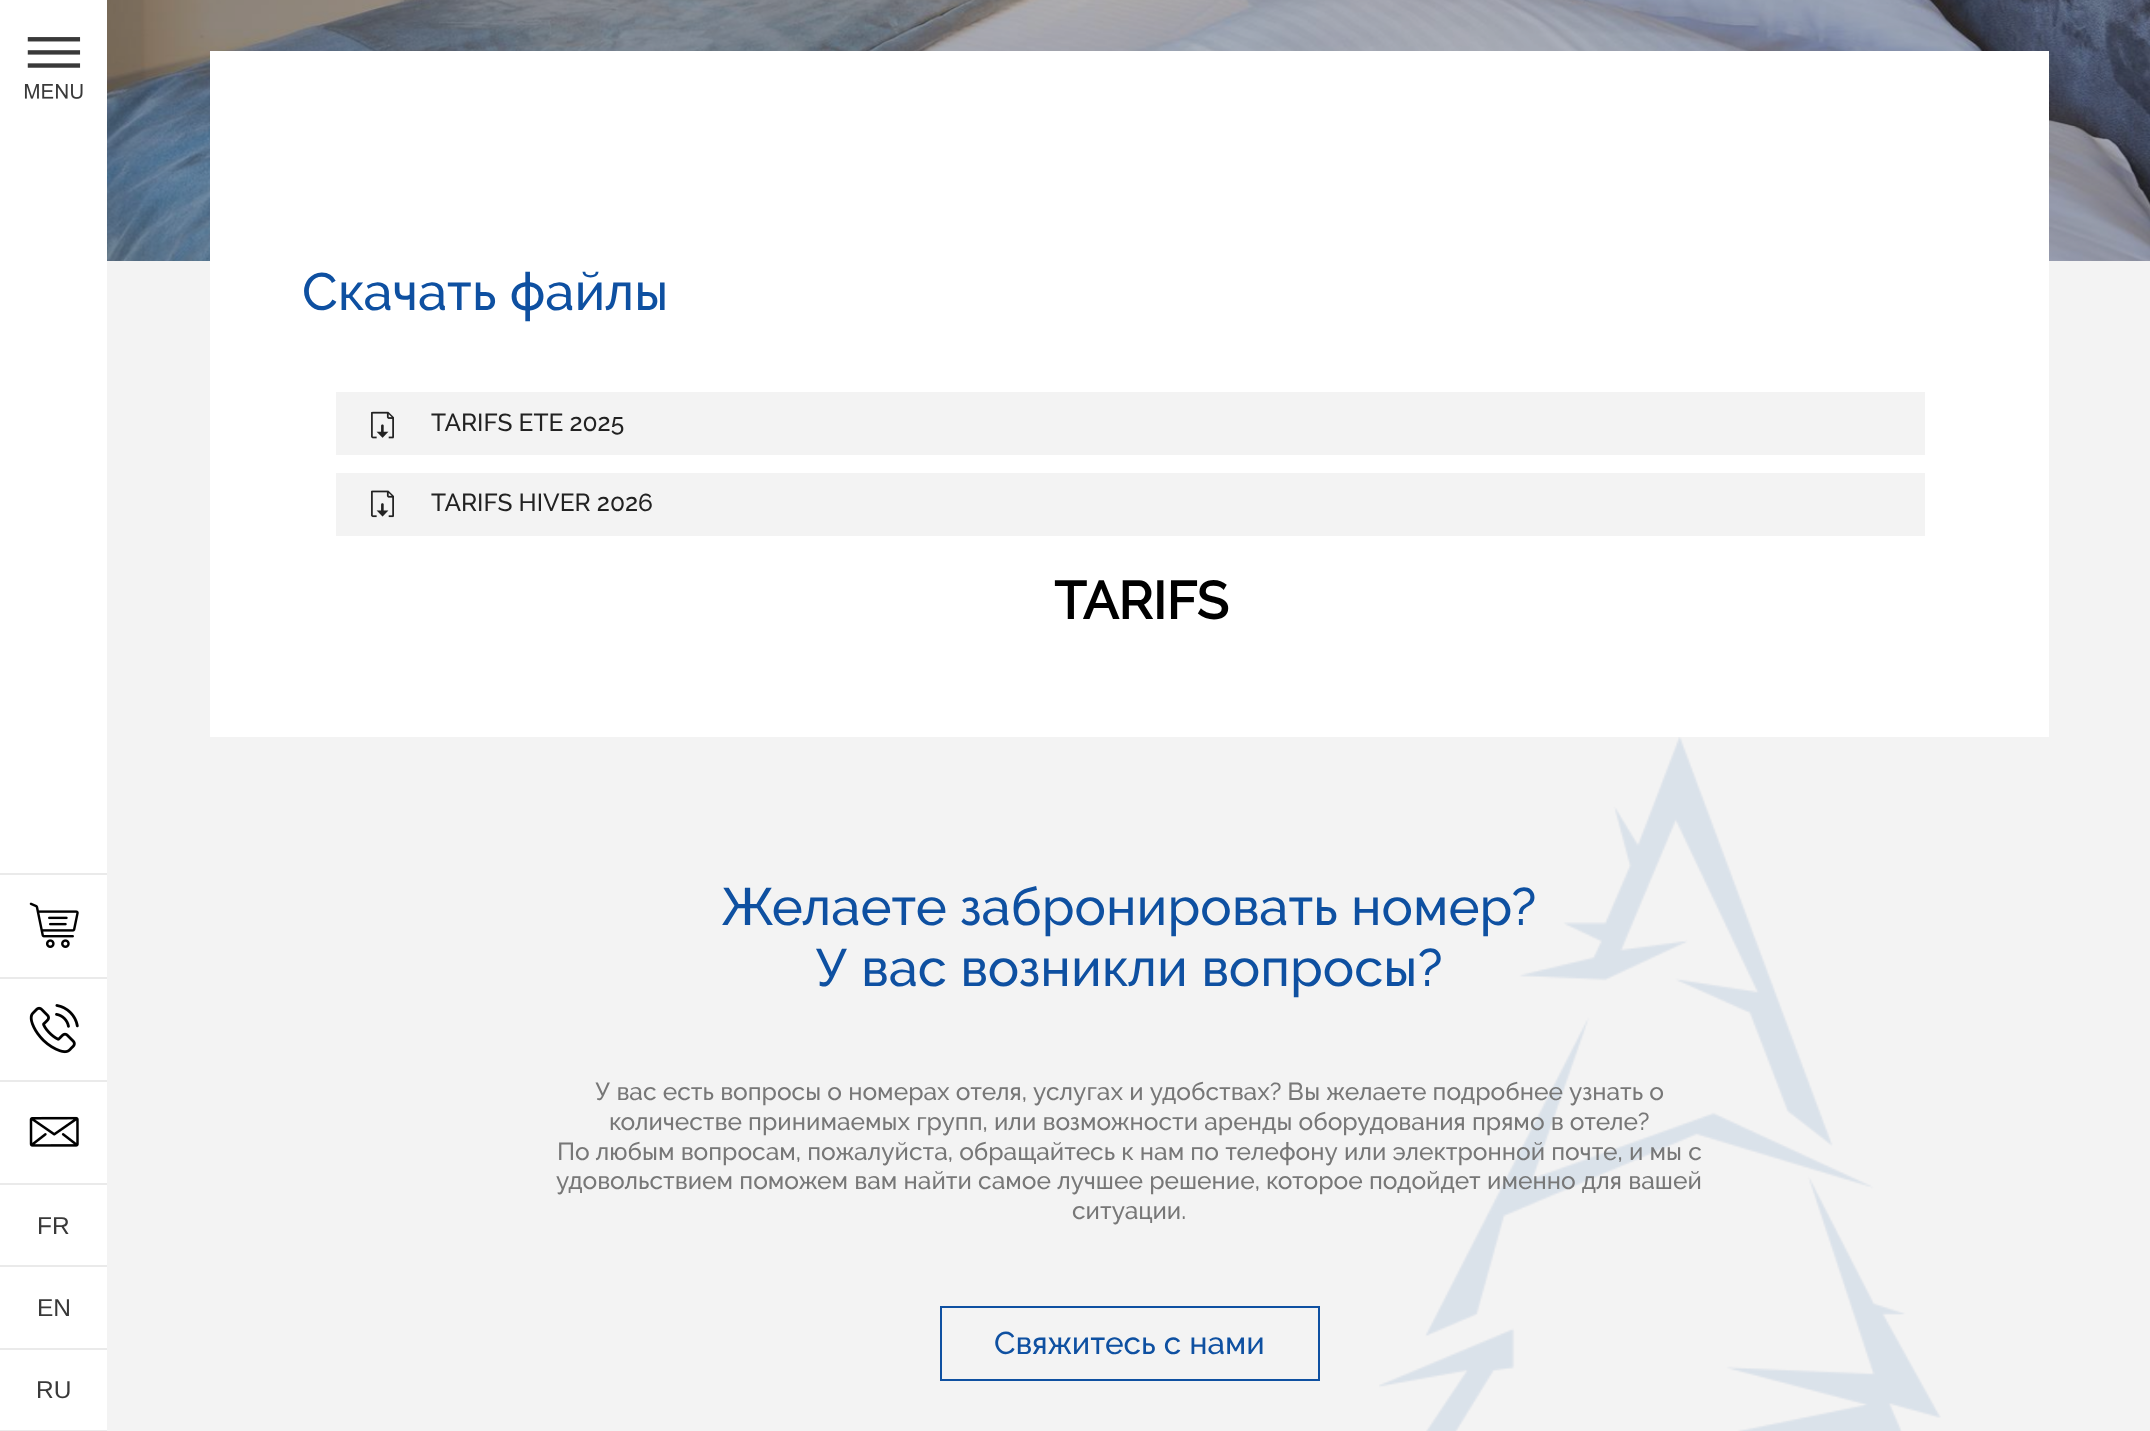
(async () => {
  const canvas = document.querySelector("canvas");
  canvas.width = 2150;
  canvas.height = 1431;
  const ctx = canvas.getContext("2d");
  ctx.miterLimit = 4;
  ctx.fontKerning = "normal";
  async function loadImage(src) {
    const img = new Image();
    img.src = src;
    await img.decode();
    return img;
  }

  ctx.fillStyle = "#f3f3f3";
  ctx.fillRect(0, 0, 2150, 1431);
  ctx.fillStyle = "#ffffff";
  ctx.fillRect(0, 0, 107, 1430);
  ctx.drawImage(await loadImage("img/1.png"), 24, 37, 59, 62);
  ctx.fillStyle = "#eaeaea";
  ctx.fillRect(0, 873, 107, 2);
  ctx.fillRect(0, 977, 107, 2);
  ctx.drawImage(await loadImage("img/2.png"), 29, 902, 50, 46);
  ctx.fillRect(0, 1080, 107, 2);
  ctx.drawImage(await loadImage("img/3.png"), 29, 1004, 50, 50);
  ctx.fillRect(0, 1183, 107, 2);
  ctx.drawImage(await loadImage("img/4.png"), 29, 1116, 50, 31);
  for (const [x, y, w, h, color] of [
    [0, 1265, 107, 2, "#eaeaea"],
    [0, 1348, 107, 2, "#eaeaea"],
    [0, 1430, 107, 1, "#eaeaea"],
  ]) {
    ctx.fillStyle = color;
    ctx.fillRect(x, y, w, h);
  }
  ctx.drawImage(await loadImage("img/5.png"), 107, 0, 2043, 261);
  ctx.fillStyle = "#ffffff";
  ctx.fillRect(210, 51, 1839, 686);
  ctx.fillStyle = "#f3f3f3";
  ctx.fillRect(336, 392, 1589, 63);
  ctx.drawImage(await loadImage("img/6.png"), 371, 411, 23, 28);
  ctx.fillRect(336, 473, 1589, 63);
  ctx.drawImage(await loadImage("img/7.png"), 371, 490, 23, 28);
  ctx.drawImage(await loadImage("img/8.png"), 1379, 737, 562, 694);
  ctx.strokeStyle = "#0e50a1";
  ctx.lineWidth = 2;
  ctx.strokeRect(941, 1307, 378, 73);
  ctx.font = "24.5px Liberation Sans";
  ctx.fillStyle = "#393939";
  for (const [text, x, y] of [
    ["FR", 37, 1234],
    ["EN", 37, 1316],
    ["RU", 36, 1398],
  ]) {
    ctx.fillText(text, x, y);
  }
  ctx.font = "500 52.5px Raleway";
  ctx.fillStyle = "#0e50a1";
  ctx.fillText("Скачать файлы", 302, 310);
  ctx.font = "500 24.5px Raleway";
  ctx.fillStyle = "#222222";
  ctx.fillText("TARIFS ETE 2025", 431, 431);
  ctx.fillText("TARIFS HIVER 2026", 431, 511);
  ctx.font = "bold 52.5px Raleway";
  ctx.fillStyle = "#000000";
  ctx.fillText("TARIFS", 1054, 619);
  ctx.font = "500 52.5px Raleway";
  ctx.fillStyle = "#0e50a1";
  ctx.fillText("Желаете забронировать номер?", 722, 925);
  ctx.fillText("У вас возникли вопросы?", 815, 986);
  ctx.font = "500 24.5px Raleway";
  ctx.fillStyle = "#777777";
  for (const [text, x, y] of [
    ["У вас есть вопросы о номерах отеля, услугах и удобствах? Вы желаете подробнее узнать о", 595, 1100],
    ["количестве принимаемых групп, или возможности аренды оборудования прямо в отеле?", 609, 1130],
    ["По любым вопросам, пожалуйста, обращайтесь к нам по телефону или электронной почте, и мы с", 557, 1160],
    ["удовольствием поможем вам найти самое лучшее решение, которое подойдет именно для вашей", 556, 1189],
    ["ситуации.", 1072, 1219],
  ]) {
    ctx.fillText(text, x, y);
  }
  ctx.font = "500 31.5px Raleway";
  ctx.fillStyle = "#0e50a1";
  ctx.fillText("Свяжитесь с нами", 994, 1354);
})();
